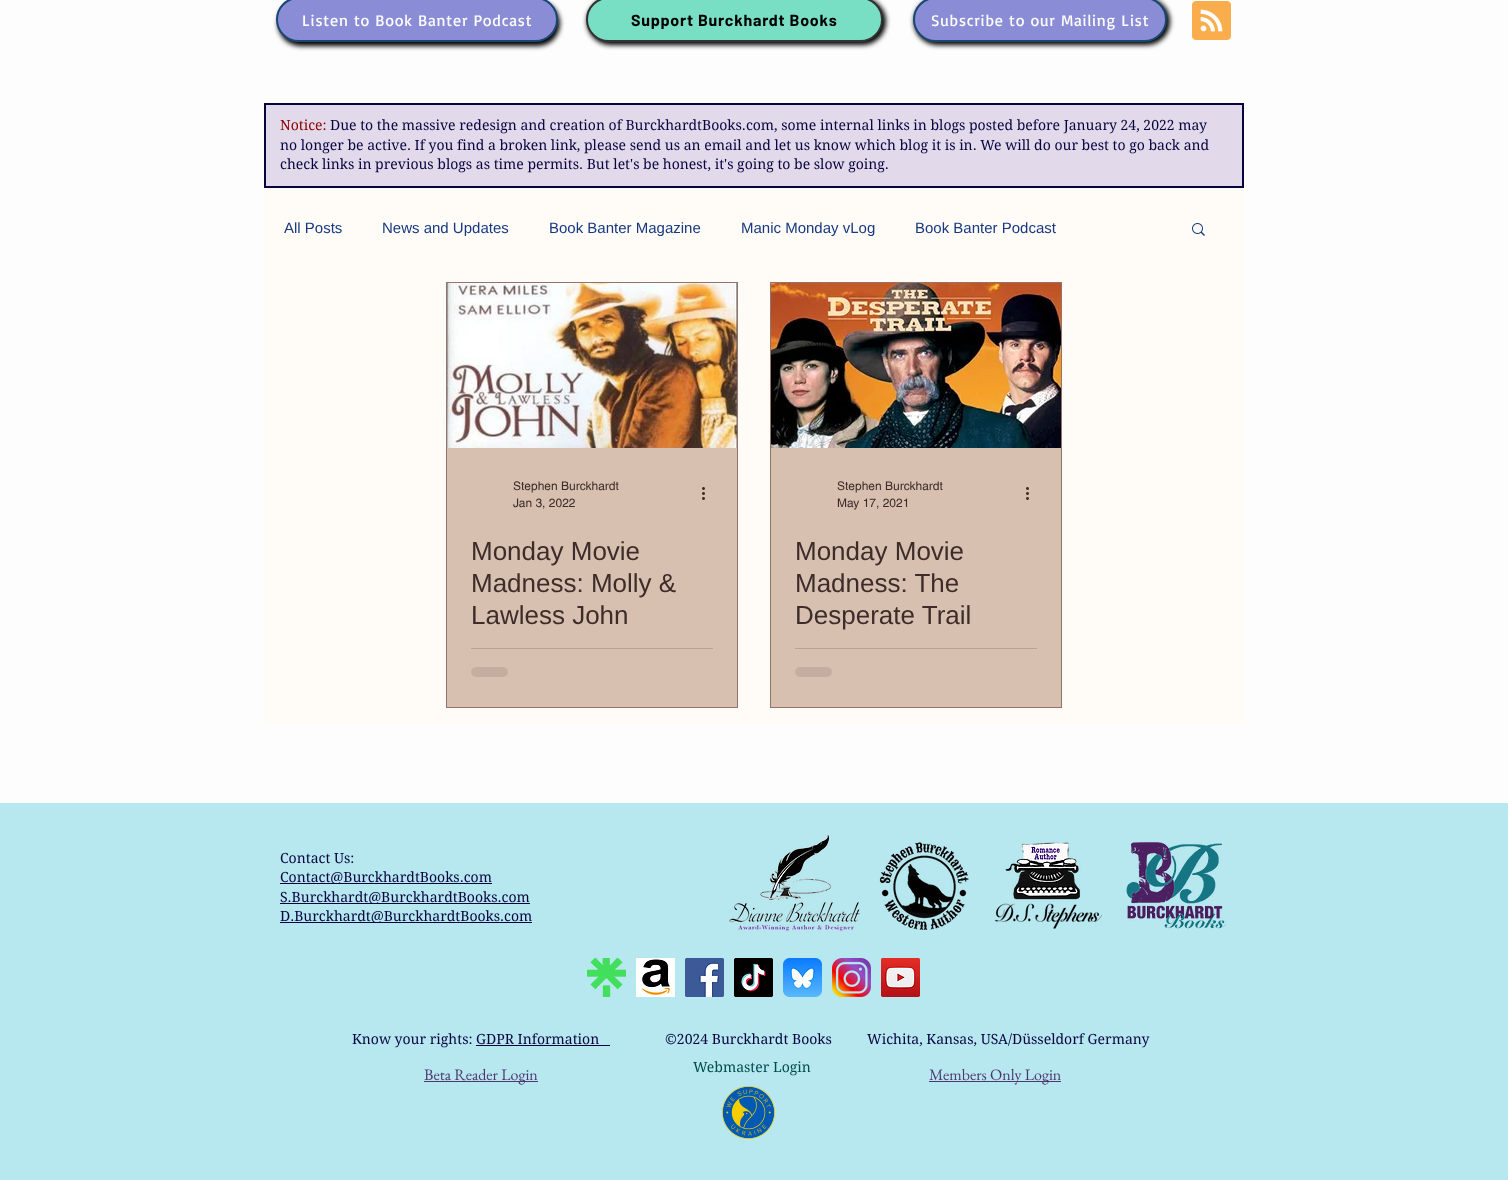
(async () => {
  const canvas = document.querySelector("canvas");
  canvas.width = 1508;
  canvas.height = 1180;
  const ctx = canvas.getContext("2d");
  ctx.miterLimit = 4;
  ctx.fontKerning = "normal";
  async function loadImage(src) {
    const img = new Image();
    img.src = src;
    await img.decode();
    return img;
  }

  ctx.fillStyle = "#fefdfd";
  ctx.fillRect(0, 0, 1508, 1180);
  ctx.fillStyle = "#000000";
  ctx.filter = "blur(2.5px)";
  ctx.beginPath();
  ctx.roundRect(278, 1, 282, 45, 22.5);
  ctx.fill();
  ctx.filter = "none";
  ctx.fillStyle = "#8b8cd6";
  ctx.beginPath();
  ctx.roundRect(277, -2, 280, 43, 21.5);
  ctx.fill();
  ctx.strokeStyle = "#184774";
  ctx.lineWidth = 2;
  ctx.stroke();
  ctx.fillStyle = "#000000";
  ctx.filter = "blur(2.5px)";
  ctx.beginPath();
  ctx.roundRect(587, -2, 299, 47, 23.5);
  ctx.fill();
  ctx.filter = "none";
  ctx.fillStyle = "#78dec4";
  ctx.beginPath();
  ctx.roundRect(587, -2, 295, 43, 21.5);
  ctx.fill();
  ctx.strokeStyle = "#323232";
  ctx.stroke();
  ctx.fillStyle = "#f9f5f3";
  ctx.filter = "blur(2.5px)";
  ctx.beginPath();
  ctx.roundRect(915, 0, 254, 45, 22.5);
  ctx.fill();
  ctx.filter = "none";
  ctx.fillStyle = "#000000";
  ctx.filter = "blur(2.5px)";
  ctx.beginPath();
  ctx.roundRect(914, -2, 256, 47, 23.5);
  ctx.fill();
  ctx.filter = "none";
  ctx.fillStyle = "#8b8cd6";
  ctx.beginPath();
  ctx.roundRect(914, -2, 252, 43, 21.5);
  ctx.fill();
  ctx.strokeStyle = "#184774";
  ctx.stroke();
  ctx.drawImage(await loadImage("img/1.png"), 1192, 1, 39, 39);
  ctx.fillStyle = "#e2daea";
  ctx.beginPath();
  ctx.rect(265, 104, 978, 83);
  ctx.fill();
  ctx.strokeStyle = "#080440";
  ctx.stroke();
  ctx.fillStyle = "#fffcf7";
  ctx.fillRect(264, 188, 980, 535);
  ctx.drawImage(await loadImage("img/2.png"), 1192, 223, 13, 13);
  ctx.fillStyle = "#d7c0af";
  ctx.fillRect(447, 448, 290, 259);
  ctx.strokeStyle = "#93746c";
  ctx.lineWidth = 1;
  ctx.strokeRect(446.5, 282.5, 291, 425);
  ctx.drawImage(await loadImage("img/3.png"), 447, 283, 290, 165);
  ctx.drawImage(await loadImage("img/4.png"), 702, 487, 3, 13);
  ctx.fillStyle = "#b8a294";
  ctx.fillRect(471, 648, 242, 1);
  ctx.fillStyle = "#c5ae9f";
  ctx.beginPath();
  ctx.roundRect(471, 667, 37, 10, 5);
  ctx.fill();
  ctx.fillStyle = "#d7c0af";
  ctx.fillRect(771, 448, 290, 259);
  ctx.strokeRect(770.5, 282.5, 291, 425);
  ctx.drawImage(await loadImage("img/5.png"), 771, 283, 290, 165);
  ctx.drawImage(await loadImage("img/4.png"), 1026, 487, 3, 13);
  ctx.fillStyle = "#b8a294";
  ctx.fillRect(795, 648, 242, 1);
  ctx.fillStyle = "#c5ae9f";
  ctx.beginPath();
  ctx.roundRect(795, 667, 37, 10, 5);
  ctx.fill();
  ctx.fillStyle = "#b7e8ef";
  ctx.fillRect(0, 803, 1508, 377);
  ctx.drawImage(await loadImage("img/6.png"), 995, 842, 107, 87);
  for (const [x, y, w, h, color] of [
    [280, 883, 212, 1, "#080440"],
    [280, 903, 250, 1, "#080440"],
    [280, 922, 252, 1, "#080440"],
  ]) {
    ctx.fillStyle = color;
    ctx.fillRect(x, y, w, h);
  }
  ctx.drawImage(await loadImage("img/7.png"), 729, 834, 131, 98);
  ctx.drawImage(await loadImage("img/8.png"), 879, 842, 90, 88);
  ctx.drawImage(await loadImage("img/9.png"), 1126, 842, 100, 87);
  ctx.drawImage(await loadImage("img/10.png"), 587, 958, 39, 39);
  ctx.drawImage(await loadImage("img/11.png"), 636, 958, 39, 39);
  ctx.drawImage(await loadImage("img/12.png"), 685, 958, 39, 39);
  ctx.drawImage(await loadImage("img/13.png"), 734, 958, 39, 39);
  ctx.drawImage(await loadImage("img/14.png"), 783, 958, 39, 39);
  ctx.drawImage(await loadImage("img/15.png"), 832, 958, 39, 39);
  ctx.drawImage(await loadImage("img/16.png"), 881, 958, 39, 39);
  for (const [x, y, w, h, color] of [
    [476, 1045, 134, 1, "#080440"],
    [424, 1081, 114, 1, "#4f3670"],
    [929, 1081, 132, 1, "#4f3670"],
  ]) {
    ctx.fillStyle = color;
    ctx.fillRect(x, y, w, h);
  }
  ctx.drawImage(await loadImage("img/17.png"), 722, 1086, 53, 53);
  ctx.letterSpacing = "0.8px";
  ctx.font = "16px Basic";
  ctx.fillStyle = "#fefdfd";
  ctx.fillText("Listen to Book Banter Podcast", 302, 26);
  ctx.font = "bold 16px Barlow";
  ctx.fillStyle = "#000000";
  ctx.fillText("Support Burckhardt Books", 631, 26);
  ctx.font = "16px Basic";
  ctx.fillStyle = "#fefdfd";
  ctx.fillText("Subscribe to our Mailing List", 931, 26);
  ctx.letterSpacing = "0px";
  ctx.font = "14px 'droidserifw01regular'";
  ctx.fillStyle = "#8b0000";
  ctx.fillText("Notice:", 280, 130);
  ctx.fillStyle = "#080440";
  for (const [text, x, y] of [
    ["Due to the massive redesign and creation of BurckhardtBooks.com, some internal links in blogs posted before January 24, 2022 may", 330, 130],
    ["no longer be active. If you find a broken link, please send us an email and let us know which blog it is in. We will do our best to go back and", 280, 150],
    ["check links in previous blogs as time permits. But let's be honest, it's going to be slow going.", 280, 169],
  ]) {
    ctx.fillText(text, x, y);
  }
  ctx.font = "15px Liberation Sans";
  ctx.fillStyle = "#183981";
  for (const [text, x, y] of [
    ["All Posts", 284, 233],
    ["News and Updates", 382, 233],
    ["Book Banter Magazine", 549, 233],
    ["Manic Monday vLog", 741, 233],
    ["Book Banter Podcast", 915, 233],
  ]) {
    ctx.fillText(text, x, y);
  }
  ctx.font = "12px helvetica";
  ctx.fillStyle = "#3d2c2a";
  ctx.fillText("Stephen Burckhardt", 513, 490);
  ctx.fillText("Jan 3, 2022", 513, 507);
  ctx.font = "26px Liberation Sans";
  for (const [text, x, y] of [
    ["Monday Movie", 471, 560],
    ["Madness: Molly &", 471, 592],
    ["Lawless John", 471, 624],
  ]) {
    ctx.fillText(text, x, y);
  }
  ctx.font = "12px helvetica";
  ctx.fillText("Stephen Burckhardt", 837, 490);
  ctx.fillText("May 17, 2021", 837, 507);
  ctx.font = "26px Liberation Sans";
  for (const [text, x, y] of [
    ["Monday Movie", 795, 560],
    ["Madness: The", 795, 592],
    ["Desperate Trail", 795, 624],
  ]) {
    ctx.fillText(text, x, y);
  }
  ctx.font = "14px 'droidserifw01regular'";
  ctx.fillStyle = "#080440";
  for (const [text, x, y] of [
    ["Contact Us:", 280, 863],
    ["Contact@BurckhardtBooks.com", 280, 882],
    ["S.Burckhardt@BurckhardtBooks.com", 280, 902],
    ["D.Burckhardt@BurckhardtBooks.com", 280, 921],
    ["Know your rights: GDPR Information", 352, 1044],
    ["©2024 Burckhardt Books", 665, 1044],
    ["Wichita, Kansas, USA/Düsseldorf Germany", 867, 1044],
  ]) {
    ctx.fillText(text, x, y);
  }
  ctx.fillStyle = "#004d4e";
  ctx.fillText("Webmaster Login", 693, 1072);
  ctx.font = "16px EB Garamond";
  ctx.fillStyle = "#4f3670";
  ctx.fillText("Beta Reader Login", 424, 1080);
  ctx.fillText("Members Only Login", 929, 1080);
})();
